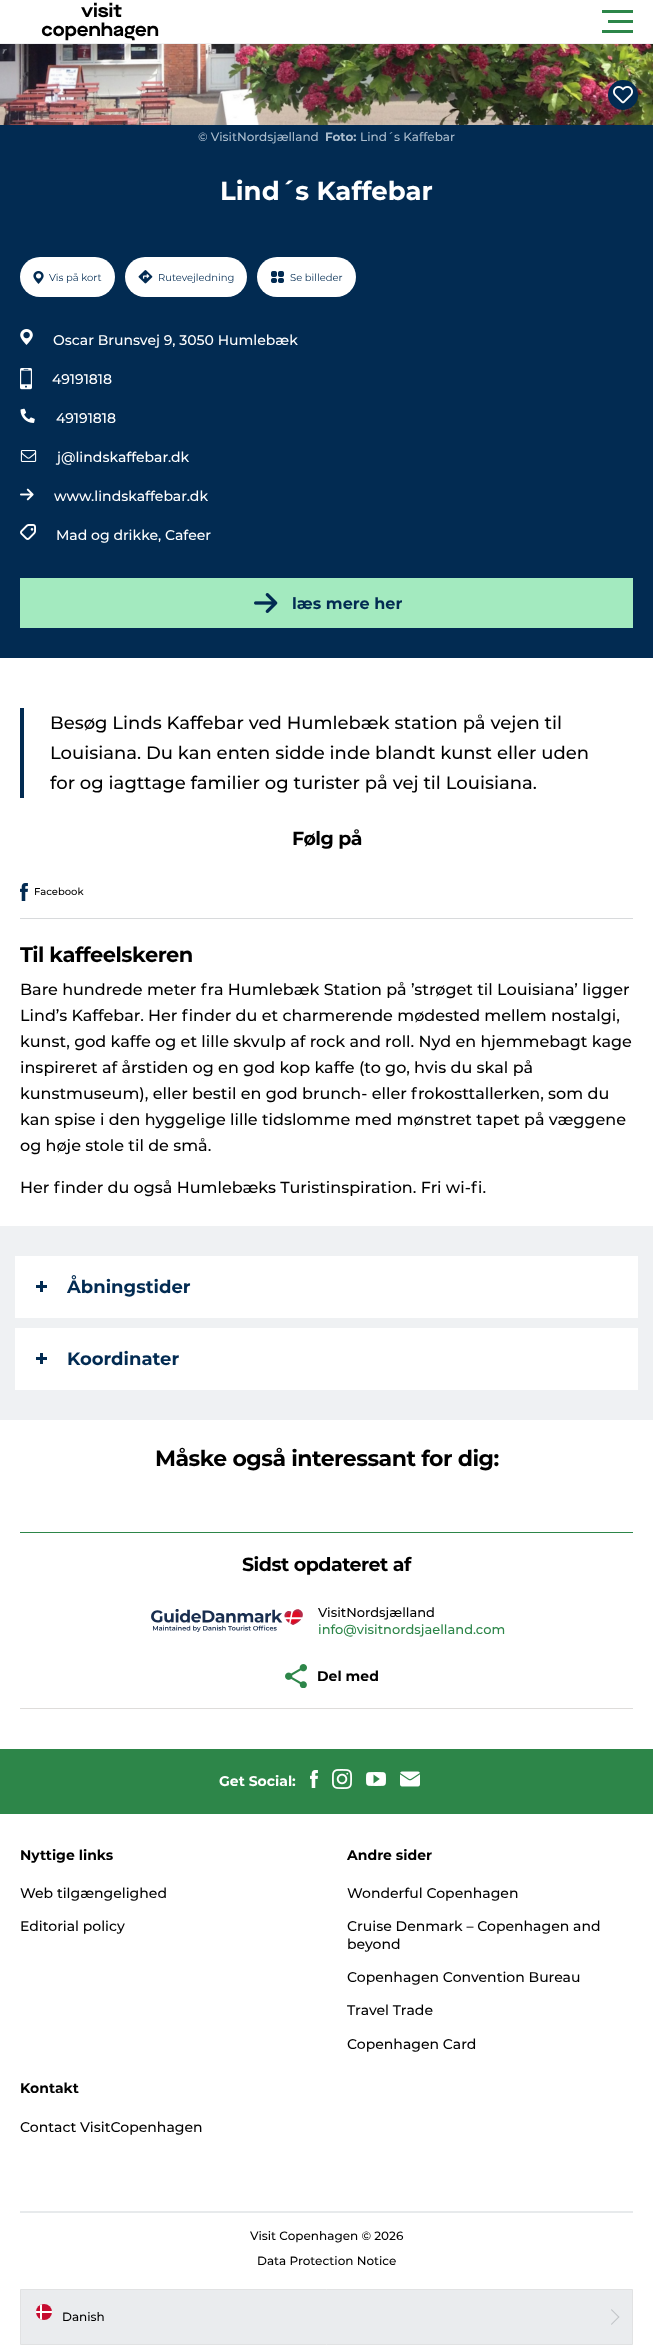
(async () => {
  const canvas = document.querySelector("canvas");
  canvas.width = 653;
  canvas.height = 2351;
  const ctx = canvas.getContext("2d");
  ctx.miterLimit = 4;
  ctx.fontKerning = "normal";
  async function loadImage(src) {
    const img = new Image();
    img.src = src;
    await img.decode();
    return img;
  }
  let path;

  ctx.fillStyle = "#ffffff";
  ctx.fillRect(0, 0, 653, 2351);
  ctx.fillStyle = "#f0f1f3";
  ctx.fillRect(0, 43, 653, 1);
  ctx.drawImage(await loadImage("img/1.png"), 41, 2, 118, 39);
  for (const [x, y, w, h, color] of [
    [602, 10, 31, 3, "#2d8649"],
    [608, 20, 25, 3, "#2d8649"],
    [602, 30, 31, 3, "#2d8649"],
  ]) {
    ctx.fillStyle = color;
    ctx.fillRect(x, y, w, h);
  }
  ctx.drawImage(await loadImage("img/2.png"), 0, 44, 653, 81);
  ctx.fillStyle = "#022b52";
  ctx.beginPath();
  ctx.arc(623, 95, 15, 0, Math.PI * 2);
  ctx.fill();
  ctx.drawImage(await loadImage("img/3.png"), 613, 86, 20, 18);
  ctx.fillRect(0, 125, 653, 533);
  ctx.fillStyle = "#ffffff";
  ctx.beginPath();
  ctx.roundRect(20, 257, 95, 40, 20);
  ctx.fill();
  ctx.drawImage(await loadImage("img/4.png"), 33, 271, 11, 13);
  ctx.beginPath();
  ctx.roundRect(125, 257, 122, 40, 20);
  ctx.fill();
  ctx.drawImage(await loadImage("img/5.png"), 138, 270, 15, 14);
  ctx.beginPath();
  ctx.roundRect(257, 257, 99, 40, 20);
  ctx.fill();
  ctx.drawImage(await loadImage("img/6.png"), 271, 271, 13, 12);
  ctx.drawImage(await loadImage("img/7.png"), 20, 329, 13, 16);
  ctx.drawImage(await loadImage("img/8.png"), 20, 368, 12, 22);
  ctx.drawImage(await loadImage("img/9.png"), 20, 408, 15, 15);
  ctx.drawImage(await loadImage("img/10.png"), 20, 450, 17, 12);
  ctx.drawImage(await loadImage("img/11.png"), 20, 488, 14, 13);
  ctx.drawImage(await loadImage("img/12.png"), 20, 524, 16, 16);
  ctx.fillStyle = "#a3eabf";
  ctx.fillRect(20, 578, 613, 50);
  ctx.drawImage(await loadImage("img/13.png"), 254, 593, 24, 20);
  ctx.fillStyle = "#022b52";
  ctx.fillRect(20, 708, 4, 90);
  ctx.fillStyle = "#d8dadc";
  ctx.fillRect(20, 918, 613, 1);
  ctx.drawImage(await loadImage("img/14.png"), 20, 883, 8, 18);
  for (const [x, y, w, h, color] of [
    [0, 1226, 653, 194, "#eff1f3"],
    [15, 1256, 623, 62, "#ffffff"],
    [36, 1285, 11, 3, "#022b52"],
    [40, 1281, 3, 11, "#022b52"],
    [15, 1328, 623, 62, "#ffffff"],
    [36, 1357, 11, 3, "#022b52"],
    [40, 1353, 3, 11, "#022b52"],
    [20, 1532, 613, 1, "#2d8649"],
    [20, 1708, 613, 1, "#dedcda"],
  ]) {
    ctx.fillStyle = color;
    ctx.fillRect(x, y, w, h);
  }
  ctx.drawImage(await loadImage("img/15.png"), 151, 1609, 152, 23);
  ctx.drawImage(await loadImage("img/16.png"), 285, 1664, 22, 24);
  ctx.fillStyle = "#2d8649";
  ctx.fillRect(0, 1749, 653, 65);
  ctx.drawImage(await loadImage("img/17.png"), 310, 1770, 8, 18);
  ctx.drawImage(await loadImage("img/18.png"), 332, 1769, 20, 20);
  ctx.drawImage(await loadImage("img/19.png"), 366, 1772, 20, 14);
  ctx.drawImage(await loadImage("img/20.png"), 400, 1771, 20, 16);
  ctx.fillStyle = "#e7eaec";
  ctx.fillRect(20, 2211, 613, 2);
  ctx.fillStyle = "#eaecee";
  ctx.beginPath();
  ctx.rect(20.5, 2289.5, 612, 55);
  ctx.fill();
  ctx.strokeStyle = "#e1e2e3";
  ctx.stroke();
  ctx.fillStyle = "#c60c30";
  ctx.beginPath();
  ctx.arc(44, 2312, 8, 0, Math.PI * 2);
  ctx.fill();
  ctx.save();
  ctx.beginPath();
  ctx.roundRect(36, 2304, 16, 16, 8);
  ctx.clip();
  ctx.fillStyle = "#ffffff";
  ctx.fillRect(40, 2304, 2, 16);
  ctx.restore();
  ctx.fillStyle = "#ffffff";
  ctx.fillRect(36, 2311, 16, 2);
  ctx.fillStyle = "#c1c4c7";
  path = new Path2D("M611.5 2309L619.5 2317L618.5 2317.5L611 2310Z");
  ctx.fill(path);
  path = new Path2D("M618.5 2316.5L619.5 2317L611.5 2325L611 2324Z");
  ctx.fill(path);
  ctx.font = "500 12px Montserrat";
  ctx.fillStyle = "#aabccd";
  ctx.fillText("© VisitNordsjælland", 198, 141);
  ctx.font = "bold 12px Montserrat";
  ctx.fillText("Foto:", 325, 141);
  ctx.font = "500 12px Montserrat";
  ctx.fillText("Lind´s Kaffebar", 360, 141);
  ctx.font = "bold 26px Montserrat";
  ctx.fillStyle = "#ffffff";
  ctx.fillText("Lind´s Kaffebar", 220, 200);
  ctx.font = "10px Montserrat";
  ctx.fillStyle = "#022b52";
  for (const [text, x, y] of [
    ["Vis på kort", 49, 281],
    ["Rutevejledning", 158, 281],
    ["Se billeder", 290, 281],
  ]) {
    ctx.fillText(text, x, y);
  }
  ctx.font = "500 14px Montserrat";
  ctx.fillStyle = "#ffffff";
  for (const [text, x, y] of [
    ["Oscar Brunsvej 9, 3050 Humlebæk", 53, 345],
    ["49191818", 52, 384],
    ["49191818", 56, 423],
    ["j@lindskaffebar.dk", 57, 462],
    ["www.lindskaffebar.dk", 54, 501],
    ["Mad og drikke, Cafeer", 56, 540],
  ]) {
    ctx.fillText(text, x, y);
  }
  ctx.font = "bold 16px Montserrat";
  ctx.fillStyle = "#022b52";
  ctx.fillText("læs mere her", 292, 609);
  ctx.font = "500 18px Montserrat";
  ctx.fillStyle = "#000000";
  for (const [text, x, y] of [
    ["Besøg Linds Kaffebar ved Humlebæk station på vejen til", 50, 729],
    ["Louisiana. Du kan enten sidde inde blandt kunst eller uden", 50, 759],
    ["for og iagttage familier og turister på vej til Louisiana.", 50, 789],
  ]) {
    ctx.fillText(text, x, y);
  }
  ctx.letterSpacing = "-0.5px";
  ctx.font = "bold 19px Montserrat";
  ctx.fillText("Følg på", 292, 845);
  ctx.letterSpacing = "0px";
  ctx.font = "500 10px Montserrat";
  ctx.fillText("Facebook", 34, 895);
  ctx.letterSpacing = "-0.5px";
  ctx.font = "bold 21px Montserrat";
  ctx.fillText("Til kaffeelskeren", 20, 962);
  ctx.letterSpacing = "0px";
  ctx.font = "500 16px Montserrat";
  for (const [text, x, y] of [
    ["Bare hundrede meter fra Humlebæk Station på ’strøget til Louisiana’ ligger", 20, 995],
    ["Lind’s Kaffebar. Her finder du et charmerende mødested mellem nostalgi,", 20, 1021],
    ["kunst, god kaffe og et lille skvulp af rock and roll. Nyd en hjemmebagt kage", 20, 1047],
    ["inspireret af årstiden og en god kop kaffe (to go, hvis du skal på", 20, 1073],
    ["kunstmuseum), eller bestil en god brunch- eller frokosttallerken, som du", 20, 1099],
    ["kan spise i den hyggelige lille tidslomme med mønstret tapet på væggene", 20, 1125],
    ["og høje stole til de små.", 20, 1151],
    ["Her finder du også Humlebæks Turistinspiration. Fri wi-fi.", 20, 1193],
  ]) {
    ctx.fillText(text, x, y);
  }
  ctx.font = "bold 18px Montserrat";
  ctx.fillStyle = "#022b52";
  ctx.fillText("Åbningstider", 67, 1293);
  ctx.fillText("Koordinater", 67, 1365);
  ctx.letterSpacing = "-0.5px";
  ctx.font = "bold 22px Montserrat";
  ctx.fillStyle = "#000000";
  ctx.fillText("Måske også interessant for dig:", 155, 1466);
  ctx.font = "bold 19px Montserrat";
  ctx.fillText("Sidst opdateret af", 242, 1571);
  ctx.letterSpacing = "0px";
  ctx.font = "500 13px Montserrat";
  ctx.fillText("VisitNordsjælland", 318, 1617);
  ctx.fillStyle = "#2d8649";
  ctx.fillText("info@visitnordsjaelland.com", 318, 1634);
  ctx.font = "bold 14px Montserrat";
  ctx.fillStyle = "#000000";
  ctx.fillText("Del med", 317, 1681);
  ctx.fillStyle = "#ffffff";
  ctx.fillText("Get Social:", 219, 1786);
  ctx.fillStyle = "#000000";
  ctx.fillText("Nyttige links", 20, 1860);
  ctx.font = "500 14px Montserrat";
  ctx.fillText("Web tilgængelighed", 20, 1898);
  ctx.fillText("Editorial policy", 20, 1931);
  ctx.font = "bold 14px Montserrat";
  ctx.fillText("Andre sider", 347, 1860);
  ctx.font = "500 14px Montserrat";
  for (const [text, x, y] of [
    ["Wonderful Copenhagen", 347, 1898],
    ["Cruise Denmark – Copenhagen and", 347, 1931],
    ["beyond", 347, 1949],
    ["Copenhagen Convention Bureau", 347, 1982],
    ["Travel Trade", 347, 2015],
    ["Copenhagen Card", 347, 2049],
  ]) {
    ctx.fillText(text, x, y);
  }
  ctx.font = "bold 14px Montserrat";
  ctx.fillText("Kontakt", 20, 2093);
  ctx.font = "500 14px Montserrat";
  ctx.fillText("Contact VisitCopenhagen", 20, 2132);
  ctx.font = "500 12px Montserrat";
  for (const [text, x, y] of [
    ["Visit Copenhagen © 2026", 250, 2240],
    ["Data Protection Notice", 257, 2265],
    ["Danish", 62, 2321],
  ]) {
    ctx.fillText(text, x, y);
  }
})();
